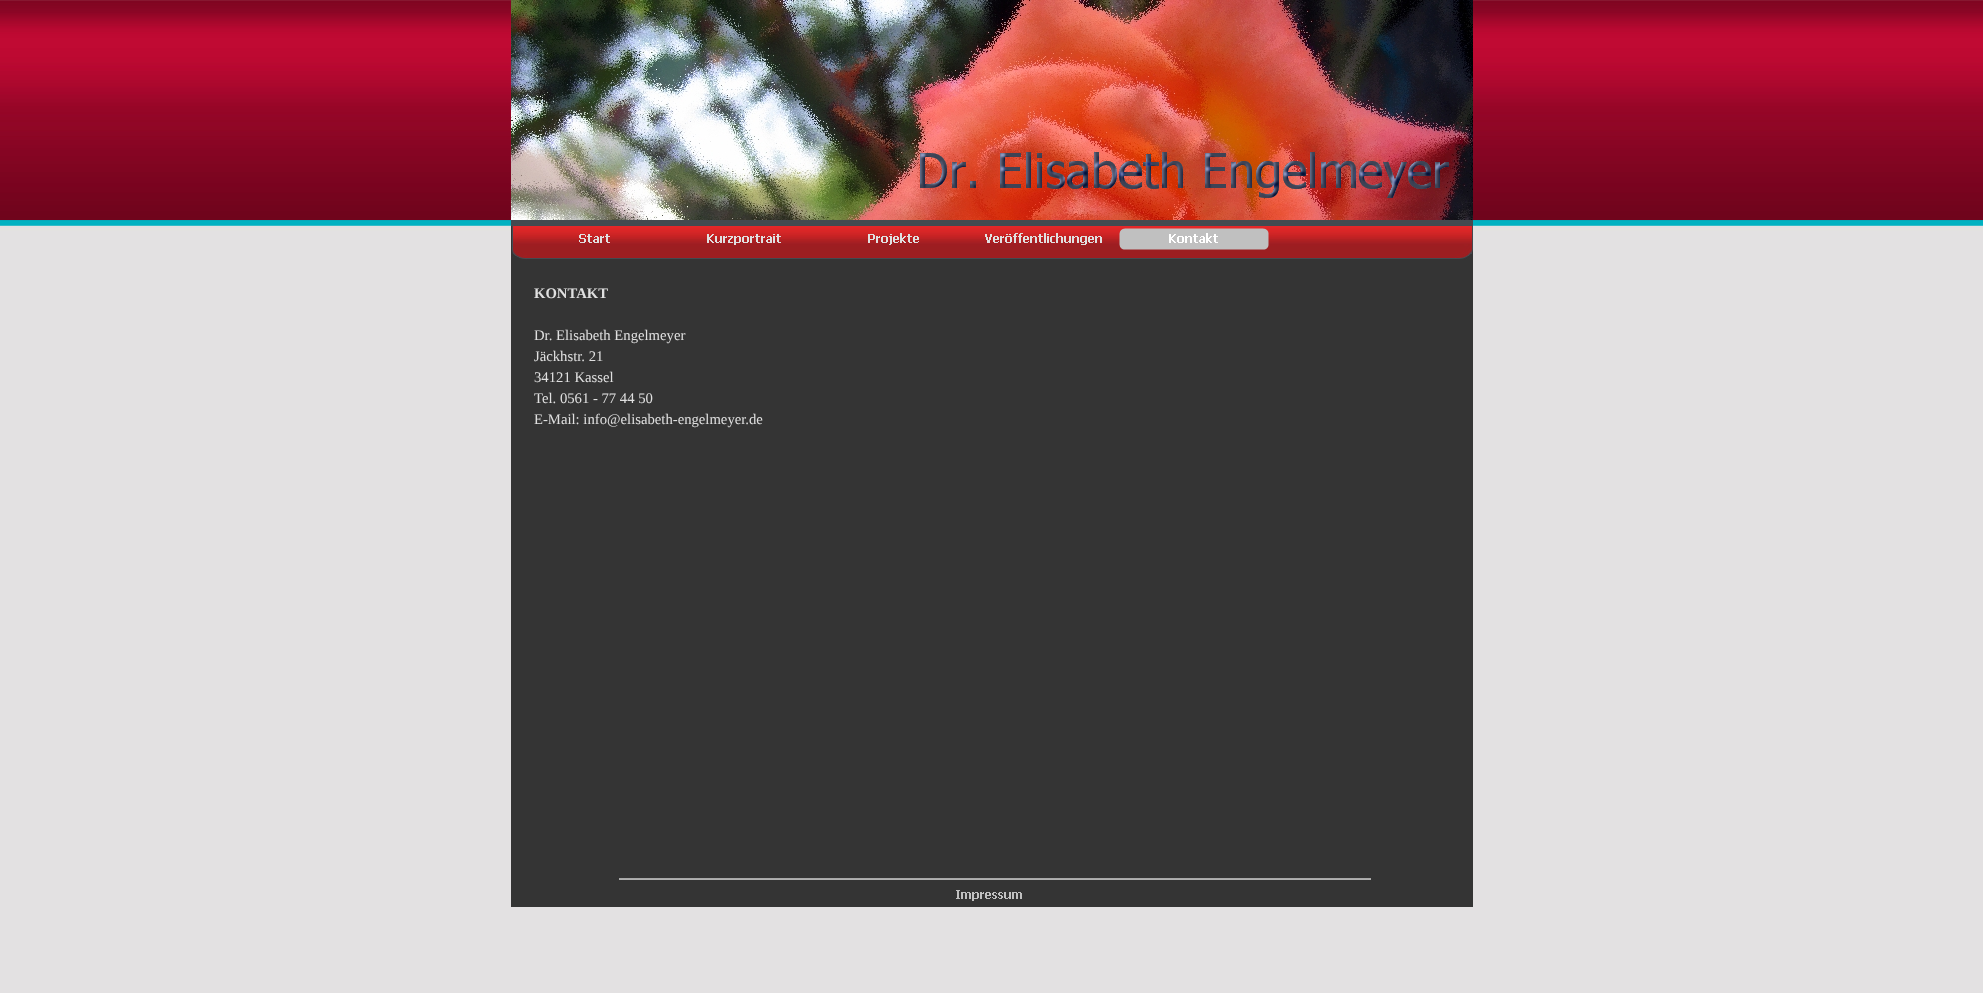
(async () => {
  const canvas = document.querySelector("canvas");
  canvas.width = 1983;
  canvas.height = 993;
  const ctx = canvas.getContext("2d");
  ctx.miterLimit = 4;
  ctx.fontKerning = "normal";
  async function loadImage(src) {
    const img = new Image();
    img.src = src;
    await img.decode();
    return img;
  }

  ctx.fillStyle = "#ffffff";
  ctx.fillRect(0, 0, 1983, 993);
  ctx.drawImage(await loadImage("img/1.png"), 0, 0, 1983, 993);
  ctx.drawImage(await loadImage("img/2.png"), 511, 0, 962, 220);
  ctx.drawImage(await loadImage("img/3.png"), 511, 220, 962, 43);
  ctx.drawImage(await loadImage("img/4.png"), 579, 234, 31, 9);
  ctx.drawImage(await loadImage("img/5.png"), 707, 234, 74, 11);
  ctx.drawImage(await loadImage("img/6.png"), 868, 233, 51, 12);
  ctx.drawImage(await loadImage("img/7.png"), 985, 233, 117, 12);
  ctx.drawImage(await loadImage("img/8.png"), 1119, 228, 150, 22);
  ctx.fillStyle = "#343434";
  ctx.fillRect(511, 263, 962, 603);
  ctx.drawImage(await loadImage("img/9.png"), 511, 866, 962, 41);
  ctx.font = "bold 14.7px Liberation Serif";
  ctx.fillStyle = "#e0e0e0";
  ctx.fillText("KONTAKT", 534, 298);
  ctx.font = "14.7px Liberation Serif";
  for (const [text, x, y] of [
    ["Dr. Elisabeth Engelmeyer", 534, 340],
    ["Jäckhstr. 21", 534, 361],
    ["34121 Kassel", 534, 382],
    ["Tel. 0561 - 77 44 50", 534, 403],
    ["E-Mail: info@elisabeth-engelmeyer.de", 534, 424],
  ]) {
    ctx.fillText(text, x, y);
  }
})();
